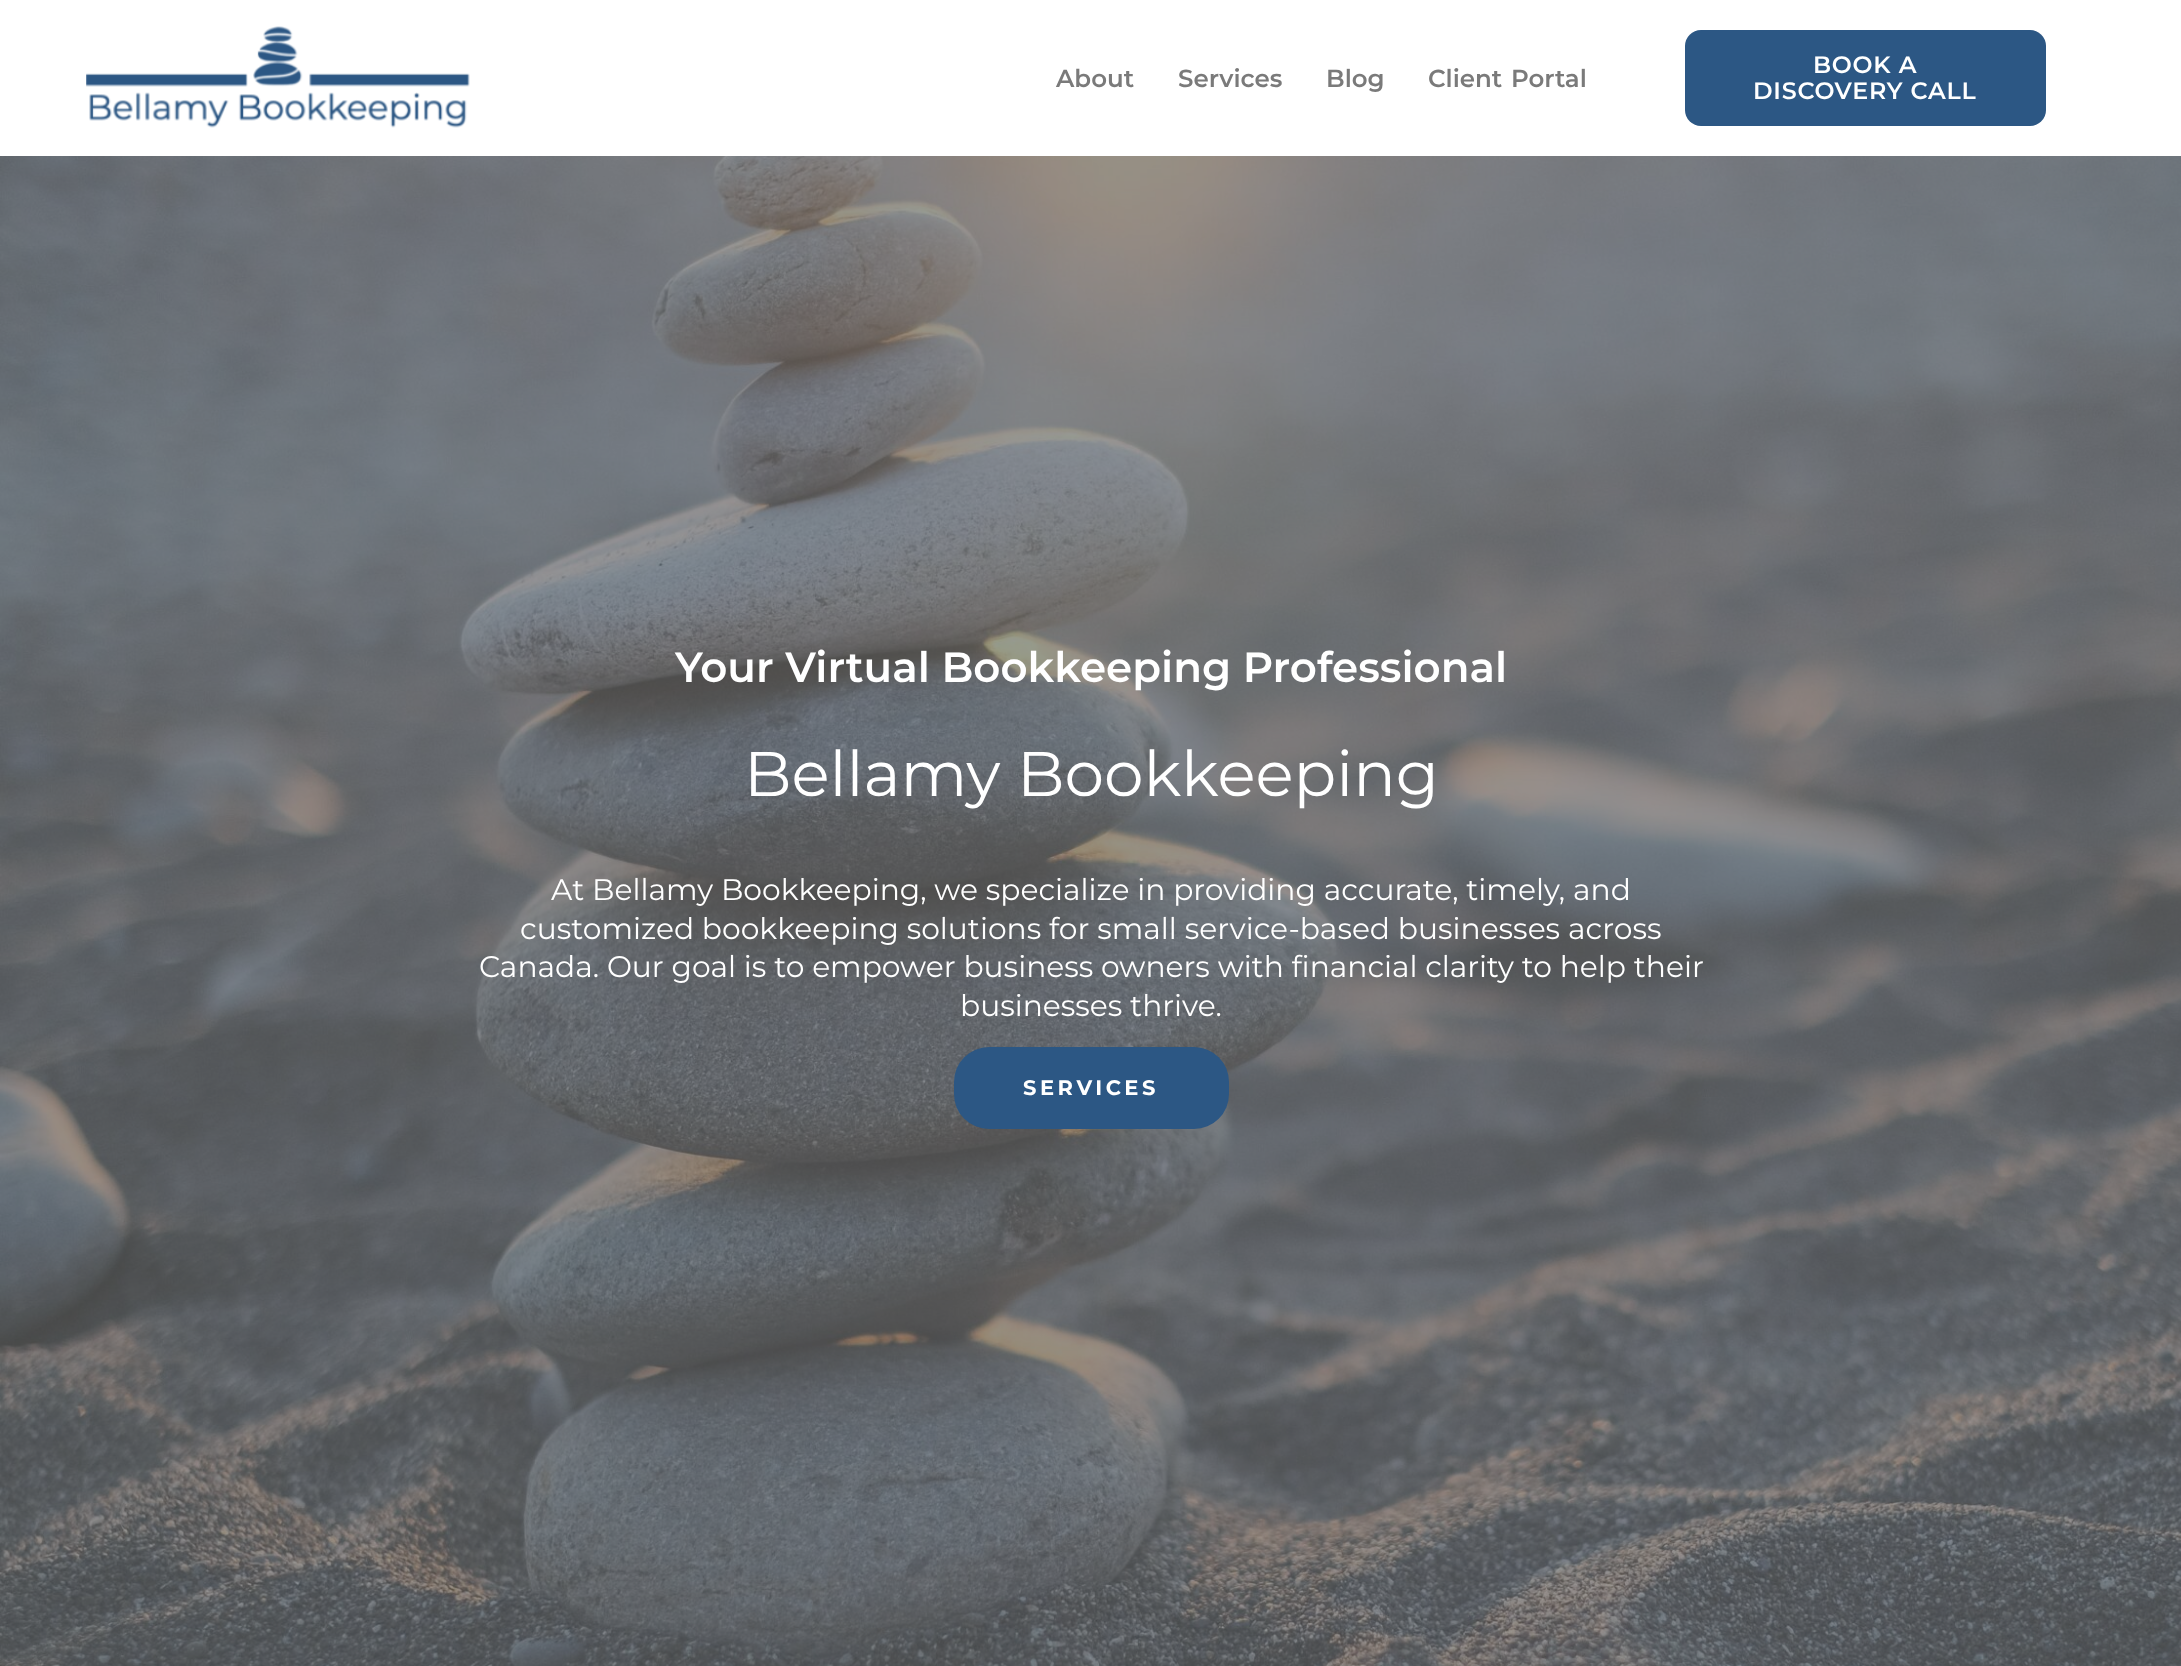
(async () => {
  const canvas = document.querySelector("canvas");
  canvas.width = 2181;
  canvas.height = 1666;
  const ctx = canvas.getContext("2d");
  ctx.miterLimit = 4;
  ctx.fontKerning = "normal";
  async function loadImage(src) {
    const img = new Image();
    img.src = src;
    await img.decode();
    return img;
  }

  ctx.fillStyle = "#ffffff";
  ctx.fillRect(0, 0, 2181, 1666);
  ctx.drawImage(await loadImage("img/1.png"), 86, 26, 384, 102);
  ctx.fillStyle = "#2c5784";
  ctx.beginPath();
  ctx.roundRect(1685, 30, 361, 96, 16);
  ctx.fill();
  ctx.drawImage(await loadImage("img/2.png"), 0, 156, 2181, 1510);
  ctx.beginPath();
  ctx.roundRect(954, 1047, 275, 82, 35);
  ctx.fill();
  ctx.font = "600 24.5px Montserrat";
  ctx.fillStyle = "#7a7a7a";
  for (const [text, x, y] of [
    ["About", 1056, 87],
    ["Services", 1178, 87],
    ["Blog", 1326, 87],
  ]) {
    ctx.fillText(text, x, y);
  }
  ctx.wordSpacing = "2px";
  ctx.fillText("Client Portal", 1428, 87);
  ctx.letterSpacing = "0.75px";
  ctx.wordSpacing = "0px";
  ctx.font = "600 23.75px Montserrat";
  ctx.fillStyle = "#ffffff";
  ctx.fillText("BOOK A", 1813, 73);
  ctx.fillText("DISCOVERY CALL", 1753, 99);
  ctx.letterSpacing = "0px";
  ctx.font = "600 42px Montserrat";
  ctx.fillText("Your Virtual Bookkeeping Professional", 675, 682);
  ctx.font = "63px Montserrat";
  ctx.fillText("Bellamy Bookkeeping", 744, 796);
  ctx.font = "29.75px Montserrat";
  for (const [text, x, y] of [
    ["At Bellamy Bookkeeping, we specialize in providing accurate, timely, and", 551, 900],
    ["customized bookkeeping solutions for small service-based businesses across", 520, 939],
    ["Canada. Our goal is to empower business owners with financial clarity to help their", 479, 977],
    ["businesses thrive.", 960, 1016],
  ]) {
    ctx.fillText(text, x, y);
  }
  ctx.letterSpacing = "3.5px";
  ctx.font = "bold 21px Montserrat";
  ctx.fillText("SERVICES", 1023, 1095);
})();
